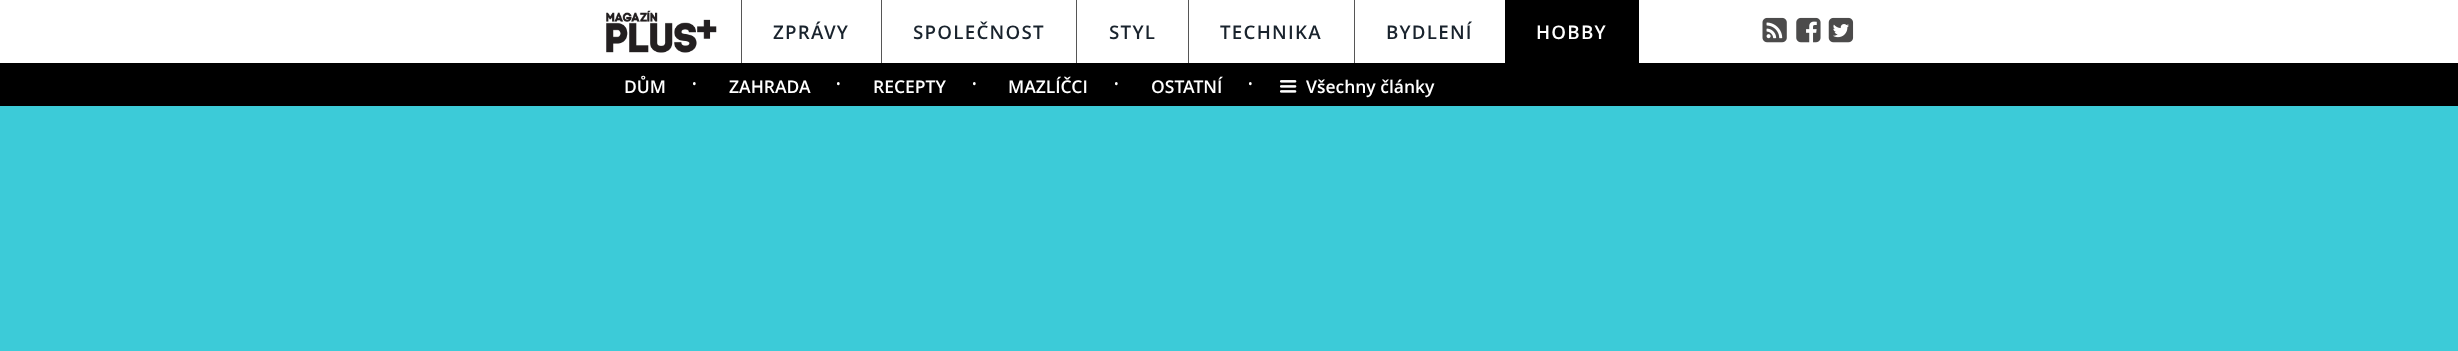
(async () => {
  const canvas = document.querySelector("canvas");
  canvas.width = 2458;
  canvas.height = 351;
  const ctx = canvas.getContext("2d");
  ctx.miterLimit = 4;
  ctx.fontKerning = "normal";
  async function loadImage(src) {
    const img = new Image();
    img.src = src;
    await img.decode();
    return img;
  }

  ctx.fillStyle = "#ffffff";
  ctx.fillRect(0, 0, 2458, 351);
  ctx.drawImage(await loadImage("img/1.png"), 606, 10, 111, 43);
  for (const [x, y, w, h, color] of [
    [741, 0, 1, 63, "#565656"],
    [881, 0, 1, 63, "#565656"],
    [1076, 0, 1, 63, "#565656"],
    [1188, 0, 1, 63, "#565656"],
    [1354, 0, 1, 63, "#565656"],
    [1505, 0, 134, 63, "#000000"],
  ]) {
    ctx.fillStyle = color;
    ctx.fillRect(x, y, w, h);
  }
  ctx.drawImage(await loadImage("img/2.png"), 1762, 17, 25, 26);
  ctx.drawImage(await loadImage("img/3.png"), 1796, 17, 25, 26);
  ctx.drawImage(await loadImage("img/4.png"), 1828, 17, 26, 26);
  ctx.fillRect(0, 63, 2458, 43);
  ctx.drawImage(await loadImage("img/5.png"), 1280, 80, 17, 13);
  ctx.fillStyle = "#3ccbd8";
  ctx.fillRect(0, 106, 2458, 245);
  ctx.letterSpacing = "1.25px";
  ctx.font = "600 18.75px Open Sans";
  ctx.fillStyle = "#19232d";
  for (const [text, x, y] of [
    ["ZPRÁVY", 773, 39],
    ["SPOLEČNOST", 913, 39],
    ["STYL", 1109, 39],
    ["TECHNIKA", 1220, 39],
    ["BYDLENÍ", 1386, 39],
  ]) {
    ctx.fillText(text, x, y);
  }
  ctx.fillStyle = "#ffffff";
  ctx.fillText("HOBBY", 1536, 39);
  ctx.letterSpacing = "0px";
  ctx.font = "600 17.5px Open Sans";
  ctx.fillText("DŮM", 624, 93);
  ctx.font = "300 17.5px Open Sans";
  ctx.fillText("•", 691, 90);
  ctx.font = "600 17.5px Open Sans";
  ctx.fillText("ZAHRADA", 729, 93);
  ctx.font = "300 17.5px Open Sans";
  ctx.fillText("•", 835, 90);
  ctx.font = "600 17.5px Open Sans";
  ctx.fillText("RECEPTY", 873, 93);
  ctx.font = "300 17.5px Open Sans";
  ctx.fillText("•", 971, 90);
  ctx.font = "600 17.5px Open Sans";
  ctx.fillText("MAZLÍČCI", 1008, 93);
  ctx.font = "300 17.5px Open Sans";
  ctx.fillText("•", 1113, 90);
  ctx.font = "600 17.5px Open Sans";
  ctx.fillText("OSTATNÍ", 1151, 93);
  ctx.font = "300 17.5px Open Sans";
  ctx.fillText("•", 1247, 90);
  ctx.font = "600 17.5px Open Sans";
  ctx.fillText("Všechny články", 1306, 93);
})();
